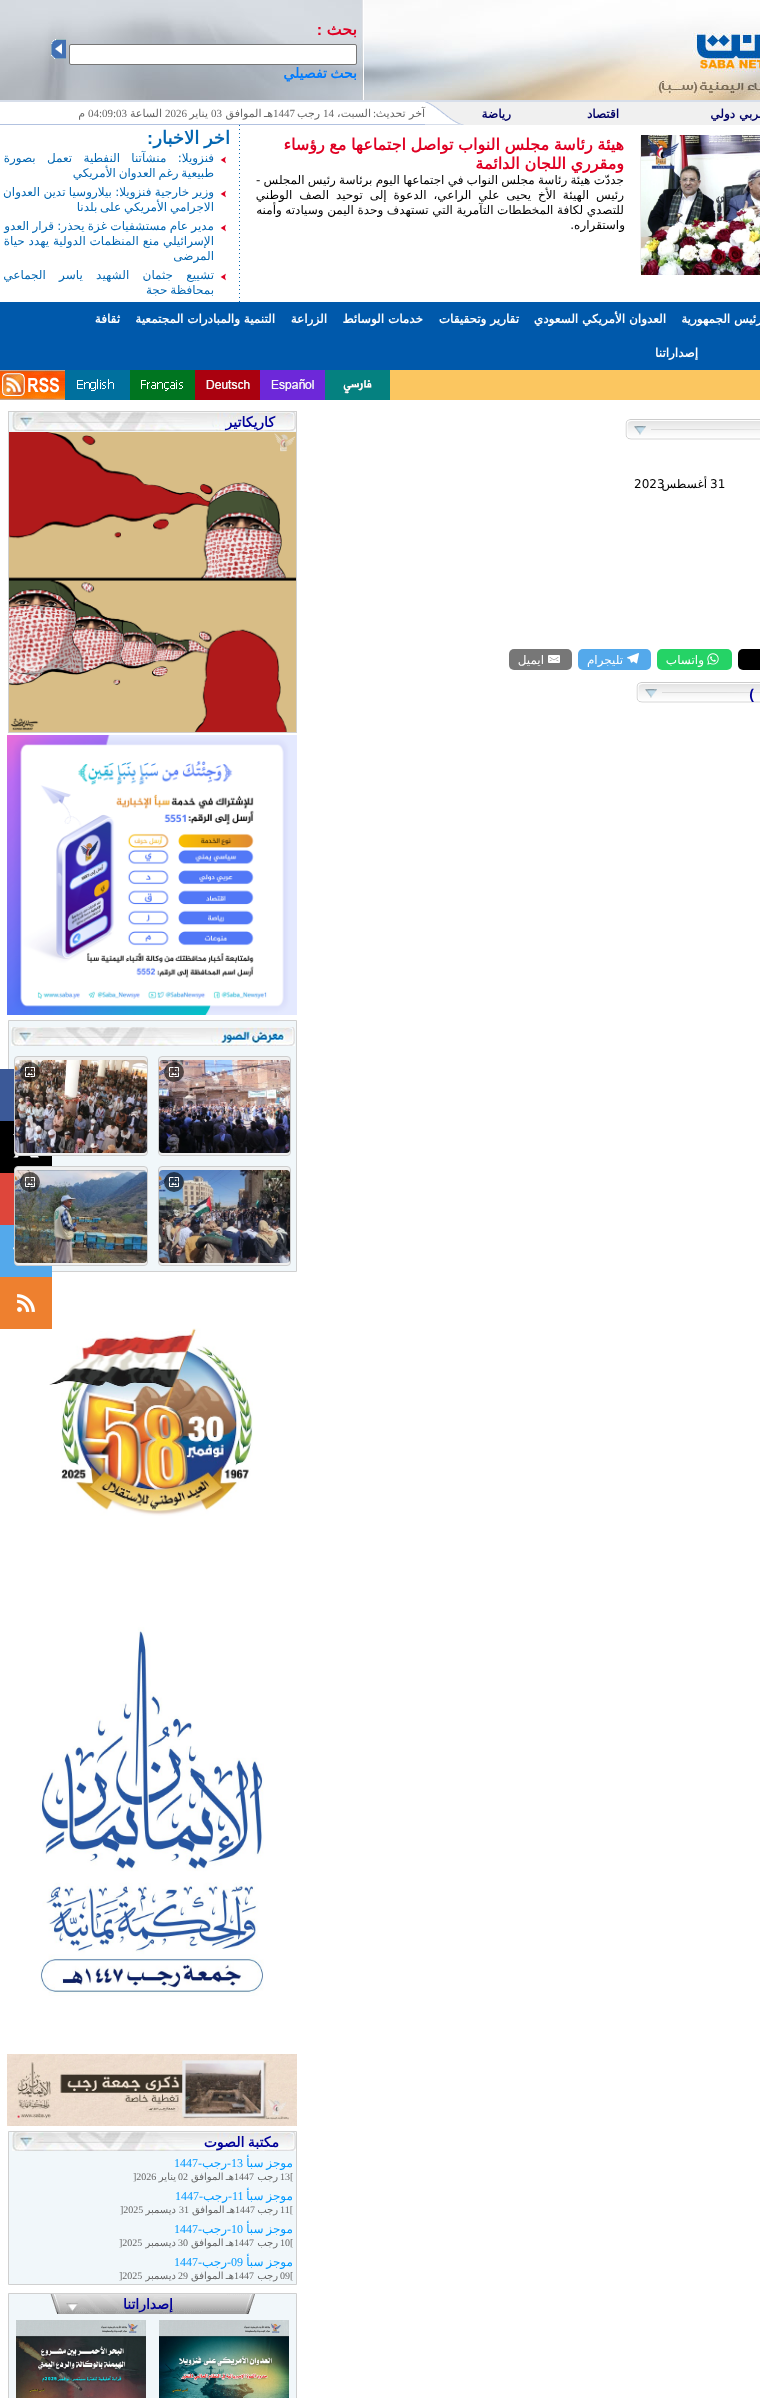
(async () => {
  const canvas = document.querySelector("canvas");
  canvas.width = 760;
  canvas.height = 2398;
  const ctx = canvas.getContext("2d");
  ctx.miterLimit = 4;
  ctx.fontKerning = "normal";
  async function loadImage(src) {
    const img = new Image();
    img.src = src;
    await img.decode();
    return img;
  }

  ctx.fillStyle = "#ffffff";
  ctx.fillRect(0, 0, 760, 2398);
  ctx.drawImage(await loadImage("img/1.png"), 364, 0, 396, 100);
  ctx.drawImage(await loadImage("img/2.png"), 0, 0, 363, 100);
  ctx.beginPath();
  ctx.roundRect(69.5, 44.5, 287, 20, 1.5);
  ctx.fill();
  ctx.strokeStyle = "#767676";
  ctx.stroke();
  ctx.drawImage(await loadImage("img/3.png"), 51, 39, 15, 20);
  ctx.fillStyle = "#d7deea";
  ctx.fillRect(0, 100, 760, 2);
  ctx.fillStyle = "#f0f0f0";
  ctx.fillRect(464, 102, 296, 23);
  ctx.drawImage(await loadImage("img/4.png"), 425, 102, 39, 23);
  ctx.fillStyle = "#b2c2e0";
  ctx.fillRect(0, 124, 425, 1);
  ctx.fillStyle = "#f0f0f0";
  ctx.beginPath();
  ctx.roundRect(640, 135, 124, 140, 4);
  ctx.fill();
  ctx.drawImage(await loadImage("img/5.png"), 641, 135, 119, 140);
  ctx.drawImage(await loadImage("img/6.png"), 239, 125, 1, 177);
  ctx.drawImage(await loadImage("img/7.png"), 220, 156, 6, 8);
  ctx.drawImage(await loadImage("img/7.png"), 220, 190, 6, 8);
  ctx.drawImage(await loadImage("img/7.png"), 220, 224, 6, 8);
  ctx.drawImage(await loadImage("img/7.png"), 220, 273, 6, 8);
  ctx.fillStyle = "#0059ab";
  ctx.fillRect(0, 302, 760, 68);
  ctx.fillStyle = "#fbc660";
  ctx.fillRect(325, 370, 435, 30);
  ctx.drawImage(await loadImage("img/8.png"), 325, 370, 65, 30);
  ctx.drawImage(await loadImage("img/9.png"), 260, 370, 65, 30);
  ctx.drawImage(await loadImage("img/10.png"), 195, 370, 65, 30);
  ctx.drawImage(await loadImage("img/11.png"), 130, 370, 65, 30);
  ctx.drawImage(await loadImage("img/12.png"), 65, 370, 65, 30);
  ctx.drawImage(await loadImage("img/13.png"), 0, 370, 65, 30);
  ctx.drawImage(await loadImage("img/14.png"), 625, 419, 135, 21);
  ctx.fillStyle = "#000000";
  ctx.beginPath();
  ctx.roundRect(738, 649, 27, 21, 5);
  ctx.fill();
  ctx.fillStyle = "#25d366";
  ctx.beginPath();
  ctx.roundRect(657, 649, 75, 21, 5);
  ctx.fill();
  ctx.drawImage(await loadImage("img/15.png"), 707, 653, 12, 12);
  ctx.fillStyle = "#54a9eb";
  ctx.beginPath();
  ctx.roundRect(578, 649, 73, 21, 5);
  ctx.fill();
  ctx.drawImage(await loadImage("img/16.png"), 627, 653, 12, 11);
  ctx.fillStyle = "#777777";
  ctx.beginPath();
  ctx.roundRect(509, 649, 63, 21, 5);
  ctx.fill();
  ctx.drawImage(await loadImage("img/17.png"), 548, 655, 12, 8);
  ctx.drawImage(await loadImage("img/18.png"), 636, 682, 124, 21);
  ctx.fillStyle = "#f1f7fa";
  ctx.fillRect(9, 412, 287, 20);
  ctx.strokeStyle = "#d0d0d0";
  ctx.strokeRect(8.5, 411.5, 288, 321);
  ctx.drawImage(await loadImage("img/19.png"), 12, 412, 284, 19);
  ctx.drawImage(await loadImage("img/20.png"), 9, 432, 287, 300);
  ctx.drawImage(await loadImage("img/21.png"), 7, 735, 290, 280);
  ctx.beginPath();
  ctx.rect(8.5, 1020.5, 288, 251);
  ctx.fill();
  ctx.stroke();
  ctx.drawImage(await loadImage("img/22.png"), 11, 1027, 284, 19);
  ctx.fillStyle = "#f0f0f0";
  ctx.beginPath();
  ctx.roundRect(158.5, 1056.5, 132, 99, 3.5);
  ctx.fill();
  ctx.strokeStyle = "#cccccc";
  ctx.stroke();
  ctx.drawImage(await loadImage("img/23.png"), 159, 1060, 131, 93);
  ctx.fillStyle = "rgba(0, 0, 0, 0.6)";
  ctx.beginPath();
  ctx.arc(174, 1072, 10, 0, Math.PI * 2);
  ctx.fill();
  ctx.drawImage(await loadImage("img/24.png"), 169, 1067, 10, 10);
  ctx.fillStyle = "#000000";
  ctx.fillRect(0, 1121, 52, 52);
  ctx.drawImage(await loadImage("img/37.png"), 13, 1134, 26, 24);
  ctx.fillStyle = "#f0f0f0";
  ctx.beginPath();
  ctx.roundRect(14.5, 1056.5, 133, 99, 3.5);
  ctx.fill();
  ctx.stroke();
  ctx.drawImage(await loadImage("img/25.png"), 15, 1060, 132, 93);
  ctx.fillStyle = "rgba(0, 0, 0, 0.6)";
  ctx.beginPath();
  ctx.arc(30, 1072, 10, 0, Math.PI * 2);
  ctx.fill();
  ctx.drawImage(await loadImage("img/26.png"), 25, 1067, 10, 10);
  ctx.fillStyle = "#f0f0f0";
  ctx.beginPath();
  ctx.roundRect(158.5, 1166.5, 132, 99, 3.5);
  ctx.fill();
  ctx.stroke();
  ctx.drawImage(await loadImage("img/27.png"), 159, 1170, 131, 93);
  ctx.fillStyle = "rgba(0, 0, 0, 0.6)";
  ctx.beginPath();
  ctx.arc(174, 1182, 10, 0, Math.PI * 2);
  ctx.fill();
  ctx.drawImage(await loadImage("img/28.png"), 169, 1177, 10, 10);
  ctx.fillStyle = "#54a9eb";
  ctx.fillRect(0, 1225, 52, 52);
  ctx.fillStyle = "#f0f0f0";
  ctx.beginPath();
  ctx.roundRect(14.5, 1166.5, 133, 99, 3.5);
  ctx.fill();
  ctx.stroke();
  ctx.drawImage(await loadImage("img/29.png"), 15, 1170, 132, 93);
  ctx.fillStyle = "rgba(0, 0, 0, 0.6)";
  ctx.beginPath();
  ctx.arc(30, 1182, 10, 0, Math.PI * 2);
  ctx.fill();
  ctx.drawImage(await loadImage("img/30.png"), 25, 1177, 10, 10);
  ctx.drawImage(await loadImage("img/31.png"), 49, 1328, 204, 188);
  ctx.drawImage(await loadImage("img/32.png"), 40, 1627, 224, 369);
  ctx.drawImage(await loadImage("img/33.png"), 7, 2054, 290, 72);
  ctx.fillStyle = "#f1f7fa";
  ctx.beginPath();
  ctx.rect(8.5, 2131.5, 288, 153);
  ctx.fill();
  ctx.strokeStyle = "#d0d0d0";
  ctx.stroke();
  ctx.drawImage(await loadImage("img/19.png"), 12, 2132, 284, 19);
  ctx.beginPath();
  ctx.rect(8.5, 2293.5, 288, 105);
  ctx.fill();
  ctx.stroke();
  ctx.drawImage(await loadImage("img/34.png"), 50, 2294, 205, 20);
  ctx.drawImage(await loadImage("img/35.png"), 159, 2320, 130, 78);
  ctx.drawImage(await loadImage("img/36.png"), 16, 2320, 130, 78);
  ctx.fillStyle = "#3b5998";
  ctx.fillRect(0, 1069, 14, 52);
  ctx.fillStyle = "#de463b";
  ctx.fillRect(0, 1173, 14, 52);
  ctx.drawImage(await loadImage("img/38.png"), 13, 1247, 1, 3);
  ctx.fillStyle = "#ee802f";
  ctx.fillRect(0, 1277, 52, 52);
  ctx.drawImage(await loadImage("img/39.png"), 17, 1294, 18, 18);
  ctx.direction = "rtl";
  ctx.font = "bold 16px DejaVu Sans";
  ctx.fillStyle = "#df0023";
  ctx.fillText("بحث", 357, 35);
  ctx.font = "bold 16px Liberation Sans";
  ctx.fillText(":", 322, 35);
  ctx.wordSpacing = "-1px";
  ctx.font = "bold 14px DejaVu Sans";
  ctx.fillStyle = "#007bff";
  ctx.fillText("بحث تفصيلي", 357, 78);
  ctx.wordSpacing = "0px";
  ctx.font = "bold 12px DejaVu Sans";
  ctx.fillStyle = "#000066";
  for (const [text, x, y] of [
    ["عربي دولي", 766, 118],
    ["اقتصاد", 619, 118],
    ["رياضة", 511, 118],
  ]) {
    ctx.fillText(text, x, y);
  }
  ctx.font = "11px DejaVu Sans";
  ctx.fillStyle = "#666666";
  ctx.fillText("آخر تحديث", 425, 117);
  ctx.font = "11px Liberation Serif";
  ctx.fillText(":", 376, 117);
  ctx.font = "11px DejaVu Sans";
  ctx.fillText("السبت،", 371, 117);
  ctx.direction = "ltr";
  ctx.font = "11px Liberation Serif";
  ctx.fillText("14", 323, 117);
  ctx.direction = "rtl";
  ctx.font = "11px DejaVu Sans";
  ctx.fillText("رجب", 320, 117);
  ctx.direction = "ltr";
  ctx.font = "11px Liberation Serif";
  ctx.fillText("1447", 273, 117);
  ctx.wordSpacing = "-1px";
  ctx.direction = "rtl";
  ctx.font = "11px DejaVu Sans";
  ctx.fillText("هـ الموافق", 273, 117);
  ctx.wordSpacing = "0px";
  ctx.direction = "ltr";
  ctx.font = "11px Liberation Serif";
  ctx.fillText("03", 211, 117);
  ctx.direction = "rtl";
  ctx.font = "11px DejaVu Sans";
  ctx.fillText("يناير", 208, 117);
  ctx.direction = "ltr";
  ctx.font = "11px Liberation Serif";
  ctx.fillText("2026", 165, 117);
  ctx.direction = "rtl";
  ctx.font = "11px DejaVu Sans";
  ctx.fillText("الساعة", 162, 117);
  ctx.direction = "ltr";
  ctx.font = "11px Liberation Serif";
  ctx.fillText("04:09:03", 88, 117);
  ctx.direction = "rtl";
  ctx.font = "11px DejaVu Sans";
  ctx.fillText("م", 85, 117);
  ctx.wordSpacing = "-0.5px";
  ctx.font = "bold 16px DejaVu Sans";
  ctx.fillStyle = "#df0023";
  ctx.fillText("هيئة رئاسة مجلس النواب تواصل اجتماعها مع رؤساء", 624, 150);
  ctx.fillText("ومقرري اللجان الدائمة", 624, 169);
  ctx.wordSpacing = "-0.6px";
  ctx.font = "12px DejaVu Sans";
  ctx.fillStyle = "#000000";
  ctx.fillText("جددّت هيئة رئاسة مجلس النواب في اجتماعها اليوم برئاسة رئيس المجلس -", 624, 184);
  ctx.wordSpacing = "3.1px";
  ctx.fillText("رئيس الهيئة الأخ يحيى علي الراعي، الدعوة إلى توحيد الصف الوطني", 624, 199);
  ctx.wordSpacing = "-0.25px";
  ctx.fillText("للتصدي لكافة المخططات التآمرية التي تستهدف وحدة اليمن وسيادته وأمنه", 624, 214);
  ctx.wordSpacing = "0px";
  ctx.fillText("واستقراره.", 625, 229);
  ctx.wordSpacing = "-1px";
  ctx.font = "bold 18px DejaVu Sans";
  ctx.fillStyle = "#0568b2";
  ctx.fillText("اخر الاخبار", 230, 144);
  ctx.wordSpacing = "0px";
  ctx.font = "bold 18px Liberation Sans";
  ctx.fillText(":", 153, 144);
  ctx.wordSpacing = "7.5px";
  ctx.font = "12px DejaVu Sans";
  ctx.fillText("فنزويلا: منشآتنا النفطية تعمل بصورة", 214, 162);
  ctx.wordSpacing = "-1px";
  ctx.fillText("طبيعية رغم العدوان الأمريكي", 214, 177);
  ctx.wordSpacing = "-0.5px";
  ctx.fillText("وزير خارجية فنزويلا: بيلاروسيا تدين العدوان", 214, 196);
  ctx.wordSpacing = "-1px";
  ctx.fillText("الاجرامي الأمريكي على بلدنا", 214, 211);
  ctx.wordSpacing = "-0.5px";
  ctx.fillText("مدير عام مستشفيات غزة يحذر: قرار العدو", 214, 230);
  ctx.wordSpacing = "0px";
  ctx.fillText("الإسرائيلي منع المنظمات الدولية يهدد حياة", 214, 245);
  ctx.fillText("المرضى", 214, 260);
  ctx.wordSpacing = "9.5px";
  ctx.fillText("تشييع جثمان الشهيد ياسر الجماعي", 214, 279);
  ctx.wordSpacing = "-1px";
  ctx.fillText("بمحافظة حجة", 214, 294);
  ctx.wordSpacing = "0px";
  ctx.font = "bold 12px DejaVu Sans";
  ctx.fillStyle = "#ffffff";
  for (const [text, x, y] of [
    ["رئيس الجمهورية", 762, 323],
    ["العدوان الأمريكي السعودي", 666, 323],
    ["تقارير وتحقيقات", 519, 323],
    ["خدمات الوسائط", 423, 323],
    ["الزراعة", 327, 323],
    ["التنمية والمبادرات المجتمعية", 275, 323],
    ["ثقافة", 120, 323],
    ["إصداراتنا", 698, 357],
  ]) {
    ctx.fillText(text, x, y);
  }
  ctx.direction = "ltr";
  ctx.font = "12px DejaVu Sans";
  ctx.fillStyle = "#000000";
  ctx.fillText("31", 710, 488);
  ctx.fillText("2023", 634, 488);
  ctx.direction = "rtl";
  ctx.fillText("أغسطس", 707, 488);
  ctx.fillStyle = "#ffffff";
  for (const [text, x, y] of [
    ["واتساب", 704, 664],
    ["تليجرام", 623, 664],
    ["ايميل", 544, 664],
  ]) {
    ctx.fillText(text, x, y);
  }
  ctx.font = "bold 14px Liberation Sans";
  ctx.fillStyle = "#000099";
  ctx.fillText(")", 754, 699);
  ctx.font = "bold 14px DejaVu Sans";
  ctx.fillText("كاريكاتير", 275, 427);
  ctx.wordSpacing = "-1px";
  ctx.fillText("مكتبة الصوت", 279, 2147);
  ctx.font = "12px DejaVu Sans";
  ctx.fillStyle = "#0099ff";
  ctx.fillText("موجز سبأ", 293, 2167);
  ctx.wordSpacing = "0px";
  ctx.direction = "ltr";
  ctx.font = "12px Liberation Serif";
  ctx.fillText("13", 231, 2167);
  ctx.direction = "rtl";
  ctx.fillText("-", 231, 2167);
  ctx.font = "12px DejaVu Sans";
  ctx.fillText("رجب", 227, 2167);
  ctx.direction = "ltr";
  ctx.font = "12px Liberation Serif";
  ctx.fillText("1447", 174, 2167);
  ctx.direction = "rtl";
  ctx.fillText("-", 202, 2167);
  ctx.direction = "ltr";
  ctx.font = "10px Liberation Serif";
  ctx.fillStyle = "#666666";
  ctx.fillText("13[", 280, 2180);
  ctx.direction = "rtl";
  ctx.font = "10px DejaVu Sans";
  ctx.fillText("رجب", 278, 2180);
  ctx.direction = "ltr";
  ctx.font = "10px Liberation Serif";
  ctx.fillText("1447", 234, 2180);
  ctx.wordSpacing = "-1px";
  ctx.direction = "rtl";
  ctx.font = "10px DejaVu Sans";
  ctx.fillText("هـ الموافق", 234, 2180);
  ctx.wordSpacing = "0px";
  ctx.direction = "ltr";
  ctx.font = "10px Liberation Serif";
  ctx.fillText("02", 178, 2180);
  ctx.direction = "rtl";
  ctx.font = "10px DejaVu Sans";
  ctx.fillText("يناير", 176, 2180);
  ctx.direction = "ltr";
  ctx.font = "10px Liberation Serif";
  ctx.fillText("]2026", 133, 2180);
  ctx.wordSpacing = "-1px";
  ctx.direction = "rtl";
  ctx.font = "12px DejaVu Sans";
  ctx.fillStyle = "#0099ff";
  ctx.fillText("موجز سبأ", 293, 2200);
  ctx.wordSpacing = "0px";
  ctx.direction = "ltr";
  ctx.font = "12px Liberation Serif";
  ctx.fillText("11", 232, 2200);
  ctx.direction = "rtl";
  ctx.fillText("-", 232, 2200);
  ctx.font = "12px DejaVu Sans";
  ctx.fillText("رجب", 228, 2200);
  ctx.font = "12px Liberation Serif";
  ctx.fillText("-", 203, 2200);
  ctx.direction = "ltr";
  ctx.fillText("1447", 175, 2200);
  ctx.font = "10px Liberation Serif";
  ctx.fillStyle = "#666666";
  ctx.fillText("11[", 280, 2213);
  ctx.direction = "rtl";
  ctx.font = "10px DejaVu Sans";
  ctx.fillText("رجب", 278, 2213);
  ctx.direction = "ltr";
  ctx.font = "10px Liberation Serif";
  ctx.fillText("1447", 235, 2213);
  ctx.wordSpacing = "-1px";
  ctx.direction = "rtl";
  ctx.font = "10px DejaVu Sans";
  ctx.fillText("هـ الموافق", 235, 2213);
  ctx.wordSpacing = "0px";
  ctx.direction = "ltr";
  ctx.font = "10px Liberation Serif";
  ctx.fillText("31", 179, 2213);
  ctx.direction = "rtl";
  ctx.font = "10px DejaVu Sans";
  ctx.fillText("ديسمبر", 176, 2213);
  ctx.direction = "ltr";
  ctx.font = "10px Liberation Serif";
  ctx.fillText("]2025", 120, 2213);
  ctx.wordSpacing = "-1px";
  ctx.direction = "rtl";
  ctx.font = "12px DejaVu Sans";
  ctx.fillStyle = "#0099ff";
  ctx.fillText("موجز سبأ", 293, 2233);
  ctx.wordSpacing = "0px";
  ctx.direction = "ltr";
  ctx.font = "12px Liberation Serif";
  ctx.fillText("10", 231, 2233);
  ctx.direction = "rtl";
  ctx.fillText("-", 231, 2233);
  ctx.font = "12px DejaVu Sans";
  ctx.fillText("رجب", 227, 2233);
  ctx.direction = "ltr";
  ctx.font = "12px Liberation Serif";
  ctx.fillText("1447", 174, 2233);
  ctx.direction = "rtl";
  ctx.fillText("-", 202, 2233);
  ctx.direction = "ltr";
  ctx.font = "10px Liberation Serif";
  ctx.fillStyle = "#666666";
  ctx.fillText("10[", 280, 2246);
  ctx.direction = "rtl";
  ctx.font = "10px DejaVu Sans";
  ctx.fillText("رجب", 278, 2246);
  ctx.direction = "ltr";
  ctx.font = "10px Liberation Serif";
  ctx.fillText("1447", 234, 2246);
  ctx.wordSpacing = "-1px";
  ctx.direction = "rtl";
  ctx.font = "10px DejaVu Sans";
  ctx.fillText("هـ الموافق", 234, 2246);
  ctx.wordSpacing = "0px";
  ctx.direction = "ltr";
  ctx.font = "10px Liberation Serif";
  ctx.fillText("30", 178, 2246);
  ctx.direction = "rtl";
  ctx.font = "10px DejaVu Sans";
  ctx.fillText("ديسمبر", 176, 2246);
  ctx.direction = "ltr";
  ctx.font = "10px Liberation Serif";
  ctx.fillText("]2025", 119, 2246);
  ctx.wordSpacing = "-1px";
  ctx.direction = "rtl";
  ctx.font = "12px DejaVu Sans";
  ctx.fillStyle = "#0099ff";
  ctx.fillText("موجز سبأ", 293, 2266);
  ctx.wordSpacing = "0px";
  ctx.direction = "ltr";
  ctx.font = "12px Liberation Serif";
  ctx.fillText("09", 231, 2266);
  ctx.direction = "rtl";
  ctx.fillText("-", 231, 2266);
  ctx.font = "12px DejaVu Sans";
  ctx.fillText("رجب", 227, 2266);
  ctx.direction = "ltr";
  ctx.font = "12px Liberation Serif";
  ctx.fillText("1447", 174, 2266);
  ctx.direction = "rtl";
  ctx.fillText("-", 202, 2266);
  ctx.direction = "ltr";
  ctx.font = "10px Liberation Serif";
  ctx.fillStyle = "#666666";
  ctx.fillText("09[", 280, 2279);
  ctx.direction = "rtl";
  ctx.font = "10px DejaVu Sans";
  ctx.fillText("رجب", 278, 2279);
  ctx.direction = "ltr";
  ctx.font = "10px Liberation Serif";
  ctx.fillText("1447", 234, 2279);
  ctx.wordSpacing = "-1px";
  ctx.direction = "rtl";
  ctx.font = "10px DejaVu Sans";
  ctx.fillText("هـ الموافق", 234, 2279);
  ctx.wordSpacing = "0px";
  ctx.direction = "ltr";
  ctx.font = "10px Liberation Serif";
  ctx.fillText("29", 178, 2279);
  ctx.direction = "rtl";
  ctx.font = "10px DejaVu Sans";
  ctx.fillText("ديسمبر", 176, 2279);
  ctx.direction = "ltr";
  ctx.font = "10px Liberation Serif";
  ctx.fillText("]2025", 119, 2279);
  ctx.direction = "rtl";
  ctx.font = "bold 14px DejaVu Sans";
  ctx.fillStyle = "#000099";
  ctx.fillText("إصداراتنا", 173, 2309);
})();
